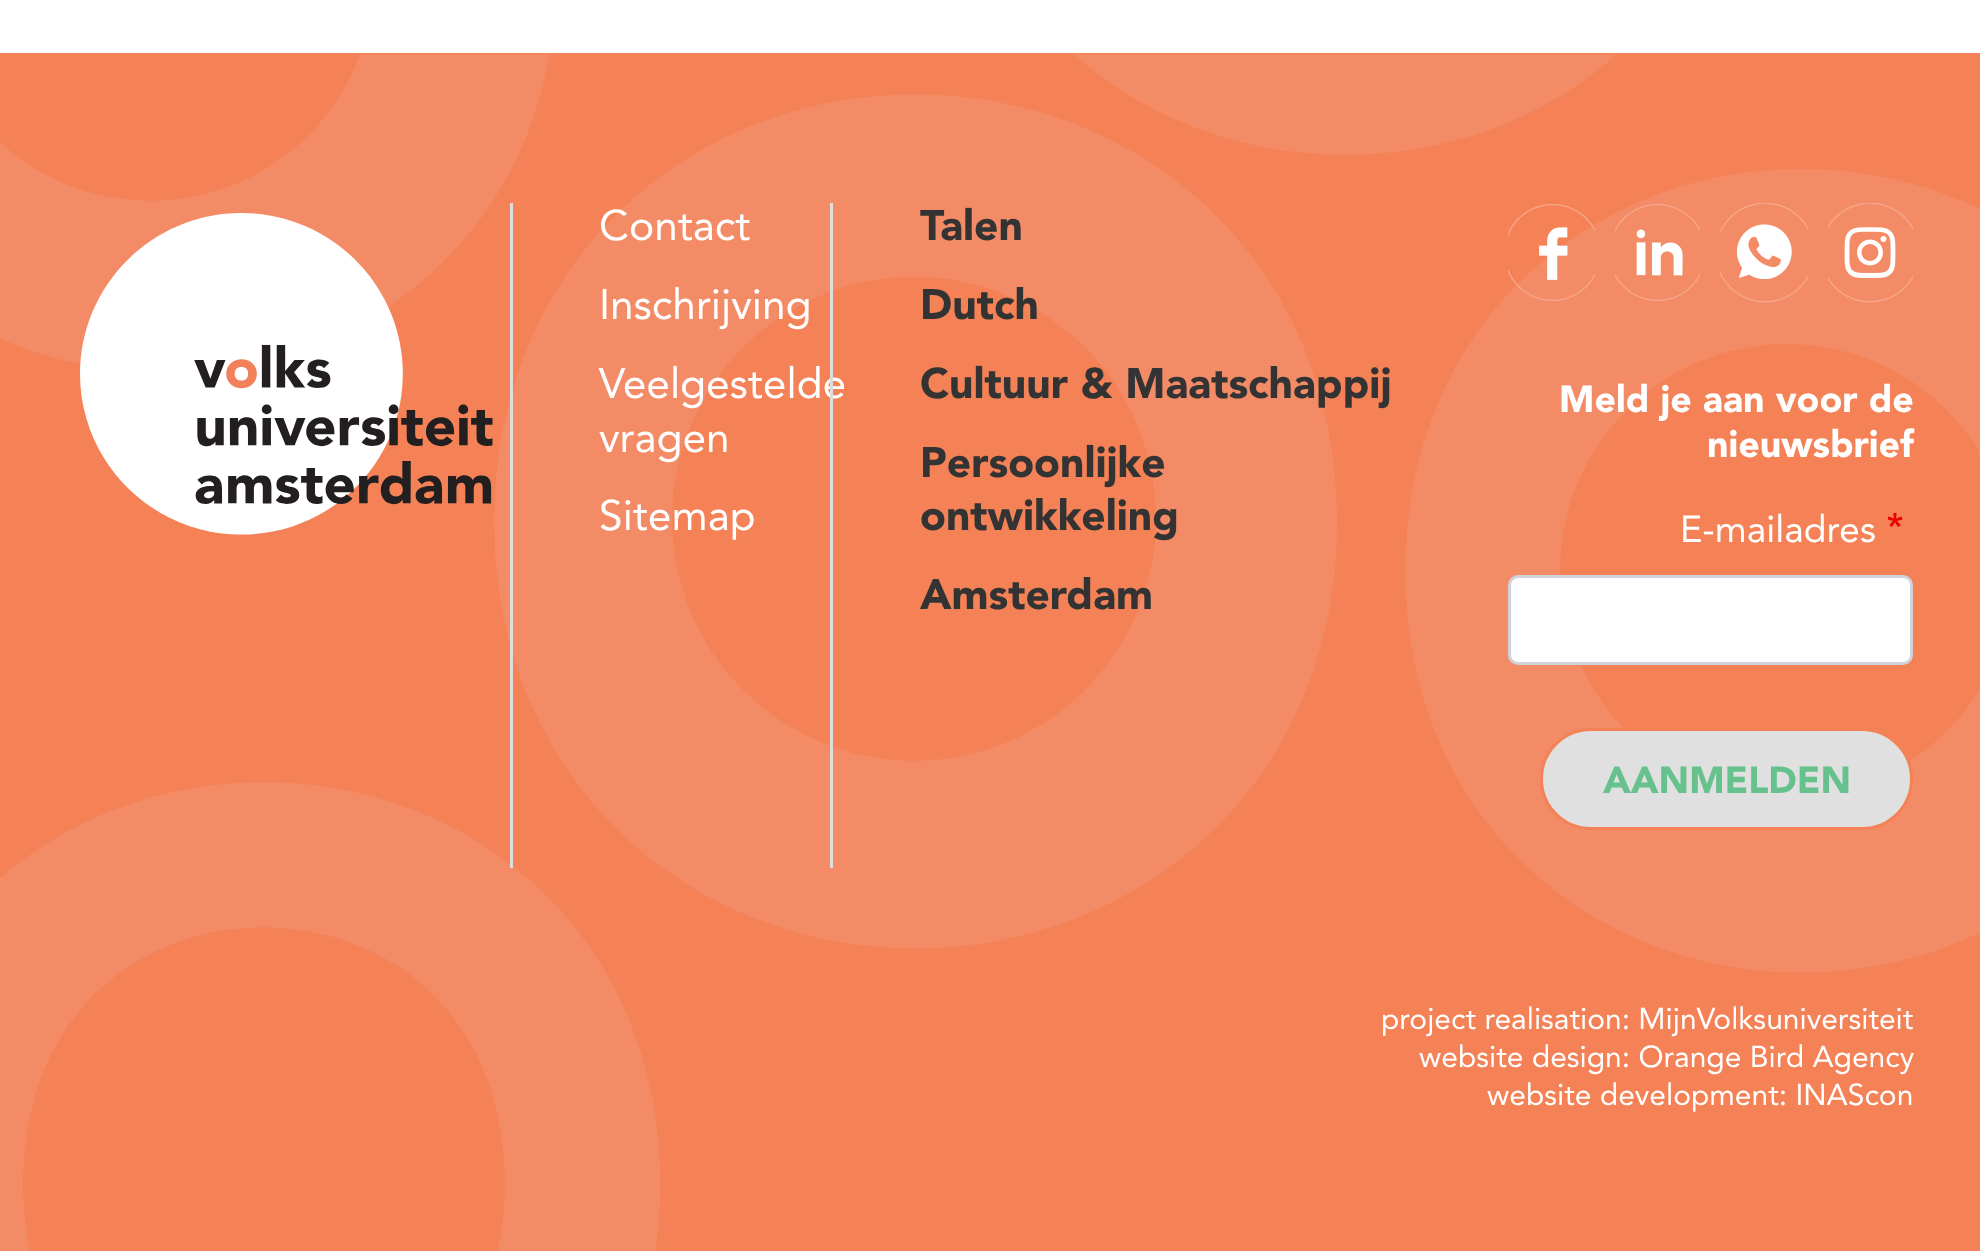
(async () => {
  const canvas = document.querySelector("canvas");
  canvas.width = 1980;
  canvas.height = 1251;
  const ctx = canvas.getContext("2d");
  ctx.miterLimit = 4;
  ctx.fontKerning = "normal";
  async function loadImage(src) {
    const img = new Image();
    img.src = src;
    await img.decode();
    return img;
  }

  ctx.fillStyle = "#ffffff";
  ctx.fillRect(0, 0, 1980, 1251);
  ctx.fillStyle = "#f48256";
  ctx.fillRect(0, 53, 1980, 1198);
  ctx.drawImage(await loadImage("img/1.png"), 0, 54, 1980, 1197);
  ctx.drawImage(await loadImage("img/2.png"), 80, 213, 413, 322);
  ctx.fillStyle = "#dddddd";
  ctx.fillRect(510, 203, 3, 665);
  ctx.drawImage(await loadImage("img/3.png"), 1508, 203, 87, 99);
  ctx.drawImage(await loadImage("img/4.png"), 1615, 203, 85, 99);
  ctx.drawImage(await loadImage("img/5.png"), 1720, 203, 88, 100);
  ctx.drawImage(await loadImage("img/6.png"), 1828, 203, 85, 100);
  ctx.drawImage(await loadImage("img/7.png"), 1888, 513, 15, 14);
  ctx.fillStyle = "#ffffff";
  ctx.beginPath();
  ctx.roundRect(1509.5, 576.5, 402, 87, 8.5);
  ctx.fill();
  ctx.strokeStyle = "#ced4da";
  ctx.lineWidth = 3;
  ctx.stroke();
  ctx.fillStyle = "#e0e0e0";
  ctx.beginPath();
  ctx.roundRect(1541.5, 729.5, 370, 99, 49.5);
  ctx.fill();
  ctx.strokeStyle = "#f48256";
  ctx.stroke();
  ctx.font = "42.5px Avenir";
  ctx.fillStyle = "#ffffff";
  for (const [text, x, y] of [
    ["Contact", 599, 240],
    ["Inschrijving", 599, 319],
    ["Veelgestelde", 599, 398],
    ["vragen", 599, 452],
    ["Sitemap", 599, 530],
  ]) {
    ctx.fillText(text, x, y);
  }
  ctx.fillStyle = "#dddddd";
  ctx.fillRect(830, 203, 3, 665);
  ctx.font = "42.5px 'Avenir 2'";
  ctx.fillStyle = "#333333";
  for (const [text, x, y] of [
    ["Talen", 920, 240],
    ["Dutch", 920, 319],
    ["Cultuur & Maatschappij", 920, 398],
    ["Persoonlijke", 920, 477],
    ["ontwikkeling", 920, 530],
    ["Amsterdam", 920, 609],
  ]) {
    ctx.fillText(text, x, y);
  }
  ctx.font = "37.5px 'Avenir 2'";
  ctx.fillStyle = "#ffffff";
  ctx.fillText("Meld je aan voor de", 1559, 412);
  ctx.fillText("nieuwsbrief", 1707, 457);
  ctx.font = "37.5px Avenir";
  ctx.fillText("E-mailadres", 1680, 542);
  ctx.font = "37.5px 'Avenir 2'";
  ctx.fillStyle = "#66c18c";
  ctx.fillText("AANMELDEN", 1603, 793);
  ctx.font = "30px Avenir";
  ctx.fillStyle = "#ffffff";
  for (const [text, x, y] of [
    ["project realisation: MijnVolksuniversiteit", 1381, 1029],
    ["website design: Orange Bird Agency", 1419, 1067],
    ["website development: INAScon", 1487, 1105],
  ]) {
    ctx.fillText(text, x, y);
  }
})();
